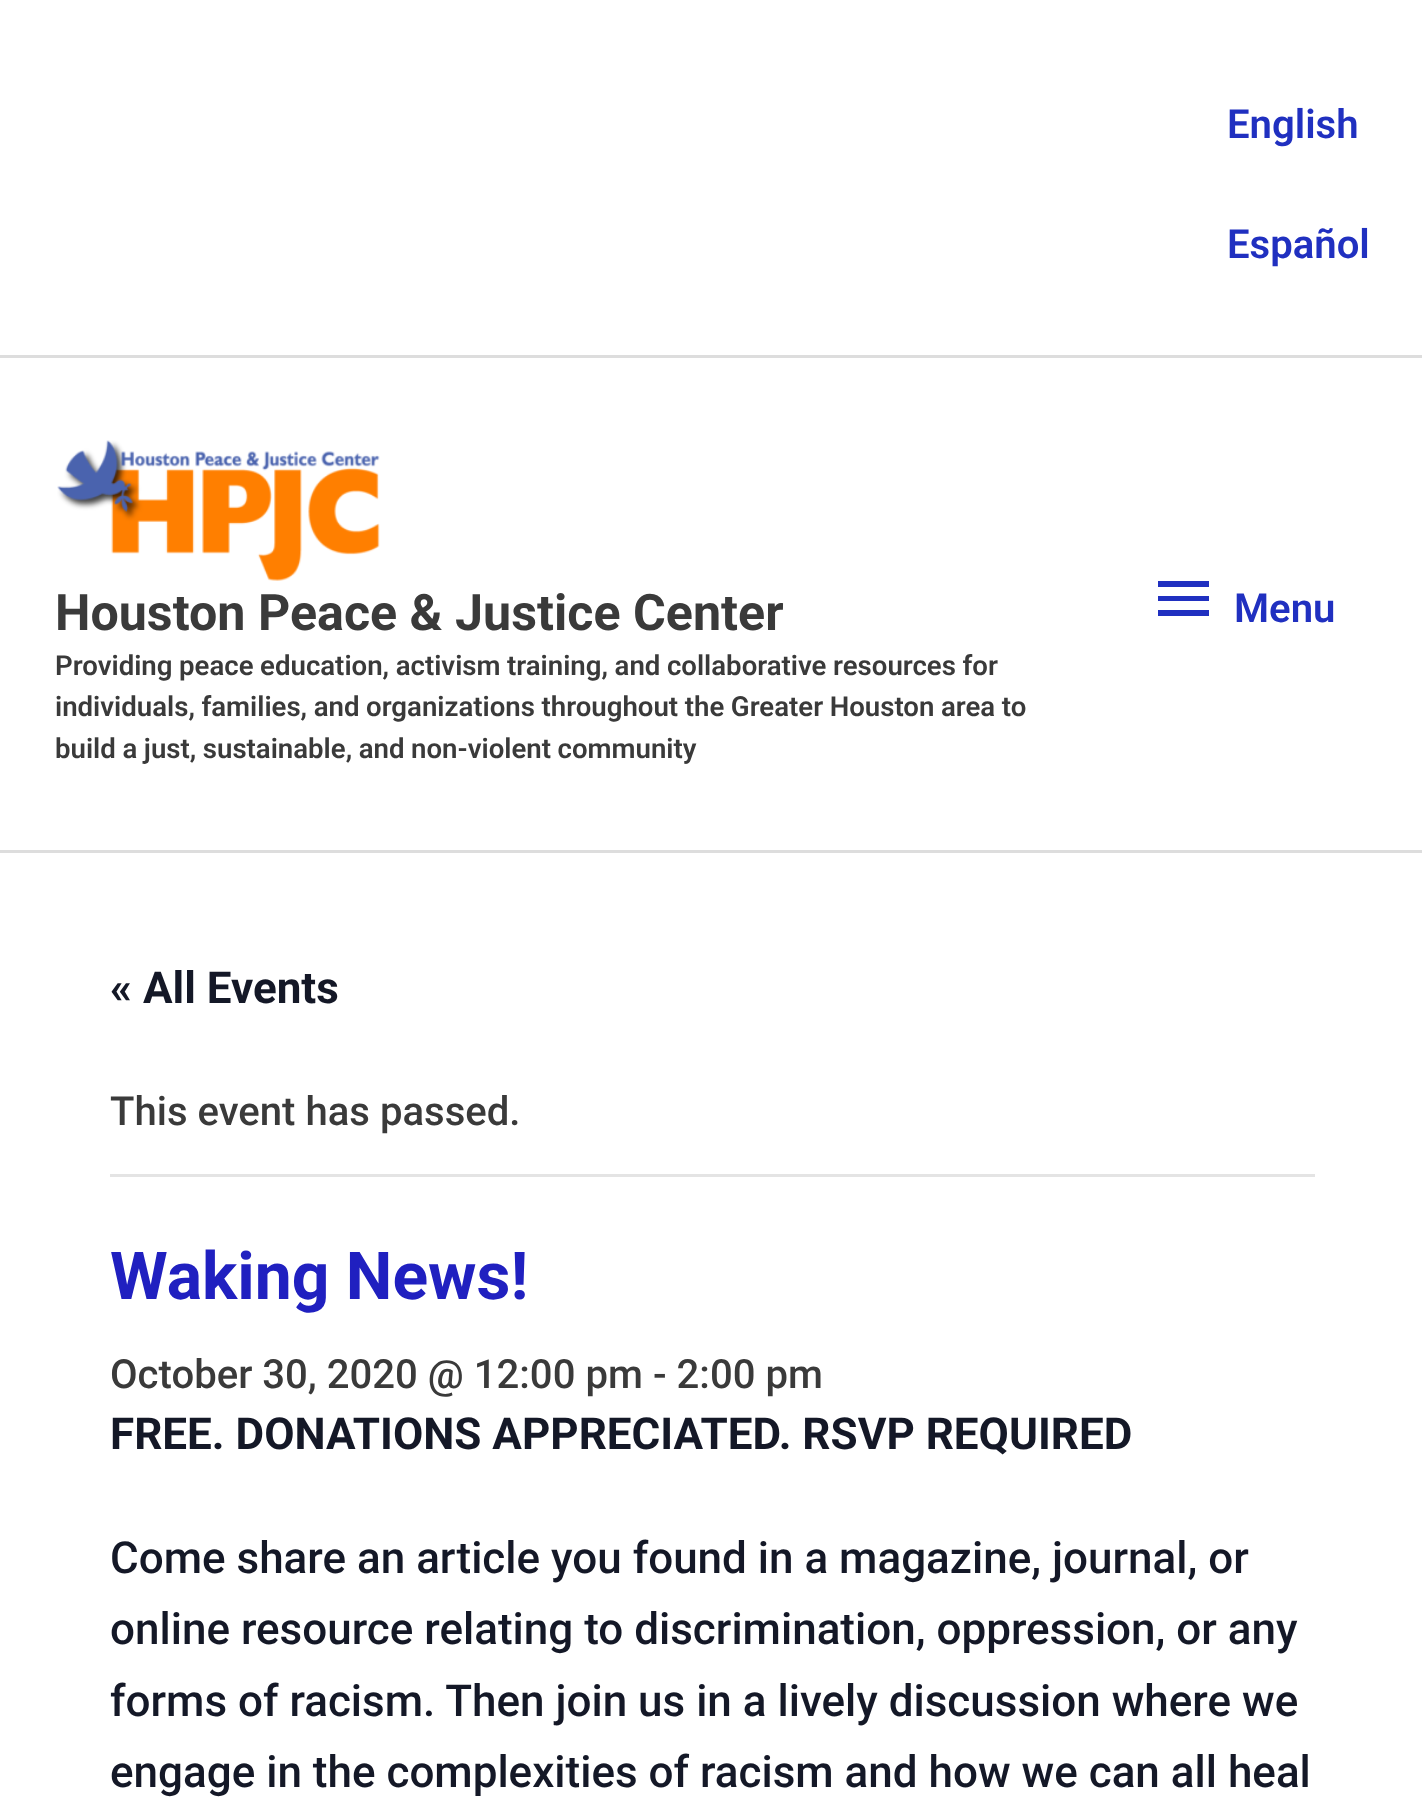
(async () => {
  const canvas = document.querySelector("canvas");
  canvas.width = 1422;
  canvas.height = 1807;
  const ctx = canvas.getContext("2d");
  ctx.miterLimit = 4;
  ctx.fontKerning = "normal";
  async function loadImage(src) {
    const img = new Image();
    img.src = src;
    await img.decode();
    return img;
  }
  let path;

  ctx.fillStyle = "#ffffff";
  ctx.fillRect(0, 0, 1422, 1807);
  ctx.fillStyle = "#dddddd";
  ctx.fillRect(0, 355, 1422, 3);
  ctx.fillRect(0, 850, 1422, 3);
  ctx.drawImage(await loadImage("img/1.png"), 57, 440, 323, 141);
  ctx.fillStyle = "#2030c0";
  path = new Path2D("M1158 581H1209V587H1158ZM1158 601V596H1209V601ZM1158 616V610H1209V616Z");
  ctx.fill(path);
  ctx.fillStyle = "#e4e4e4";
  ctx.fillRect(110, 1174, 1205, 3);
  ctx.font = "600 40.1px Roboto";
  ctx.fillStyle = "#2030c0";
  ctx.fillText("English", 1227, 138);
  ctx.fillText("Español", 1227, 258);
  ctx.font = "bold 50.2px Roboto";
  ctx.fillStyle = "#3a3a3a";
  ctx.fillText("Houston Peace & Justice Center", 55, 630);
  ctx.wordSpacing = "-0.25px";
  ctx.font = "600 27.6px Roboto";
  for (const [text, x, y] of [
    ["Providing peace education, activism training, and collaborative resources for", 55, 675],
    ["individuals, families, and organizations throughout the Greater Houston area to", 55, 716],
    ["build a just, sustainable, and non-violent community", 55, 758],
  ]) {
    ctx.fillText(text, x, y);
  }
  ctx.wordSpacing = "0px";
  ctx.font = "600 40.1px Roboto";
  ctx.fillStyle = "#2030c0";
  ctx.fillText("Menu", 1234, 622);
  ctx.font = "bold 44px Roboto";
  ctx.fillStyle = "#141827";
  ctx.fillText("« All Events", 110, 1003);
  ctx.font = "500 40.1px Roboto";
  ctx.fillStyle = "#3a3a3a";
  ctx.fillText("This event has passed.", 110, 1125);
  ctx.font = "bold 66px Roboto";
  ctx.fillStyle = "#2020c0";
  ctx.fillText("Waking News!", 110, 1299);
  ctx.font = "500 40.1px Roboto";
  ctx.fillStyle = "#3a3a3a";
  ctx.fillText("October 30, 2020 @ 12:00 pm", 110, 1388);
  ctx.fillText("- 2:00 pm", 653, 1388);
  ctx.font = "bold 44px Roboto";
  ctx.fillStyle = "#141827";
  ctx.fillText("FREE. DONATIONS APPRECIATED. RSVP REQUIRED", 110, 1449);
  ctx.font = "500 44px Roboto";
  for (const [text, x, y] of [
    ["Come share an article you found in a magazine, journal, or", 110, 1573],
    ["online resource relating to discrimination, oppression, or any", 110, 1644],
    ["forms of racism. Then join us in a lively discussion where we", 110, 1716],
    ["engage in the complexities of racism and how we can all heal", 110, 1787],
  ]) {
    ctx.fillText(text, x, y);
  }
})();
